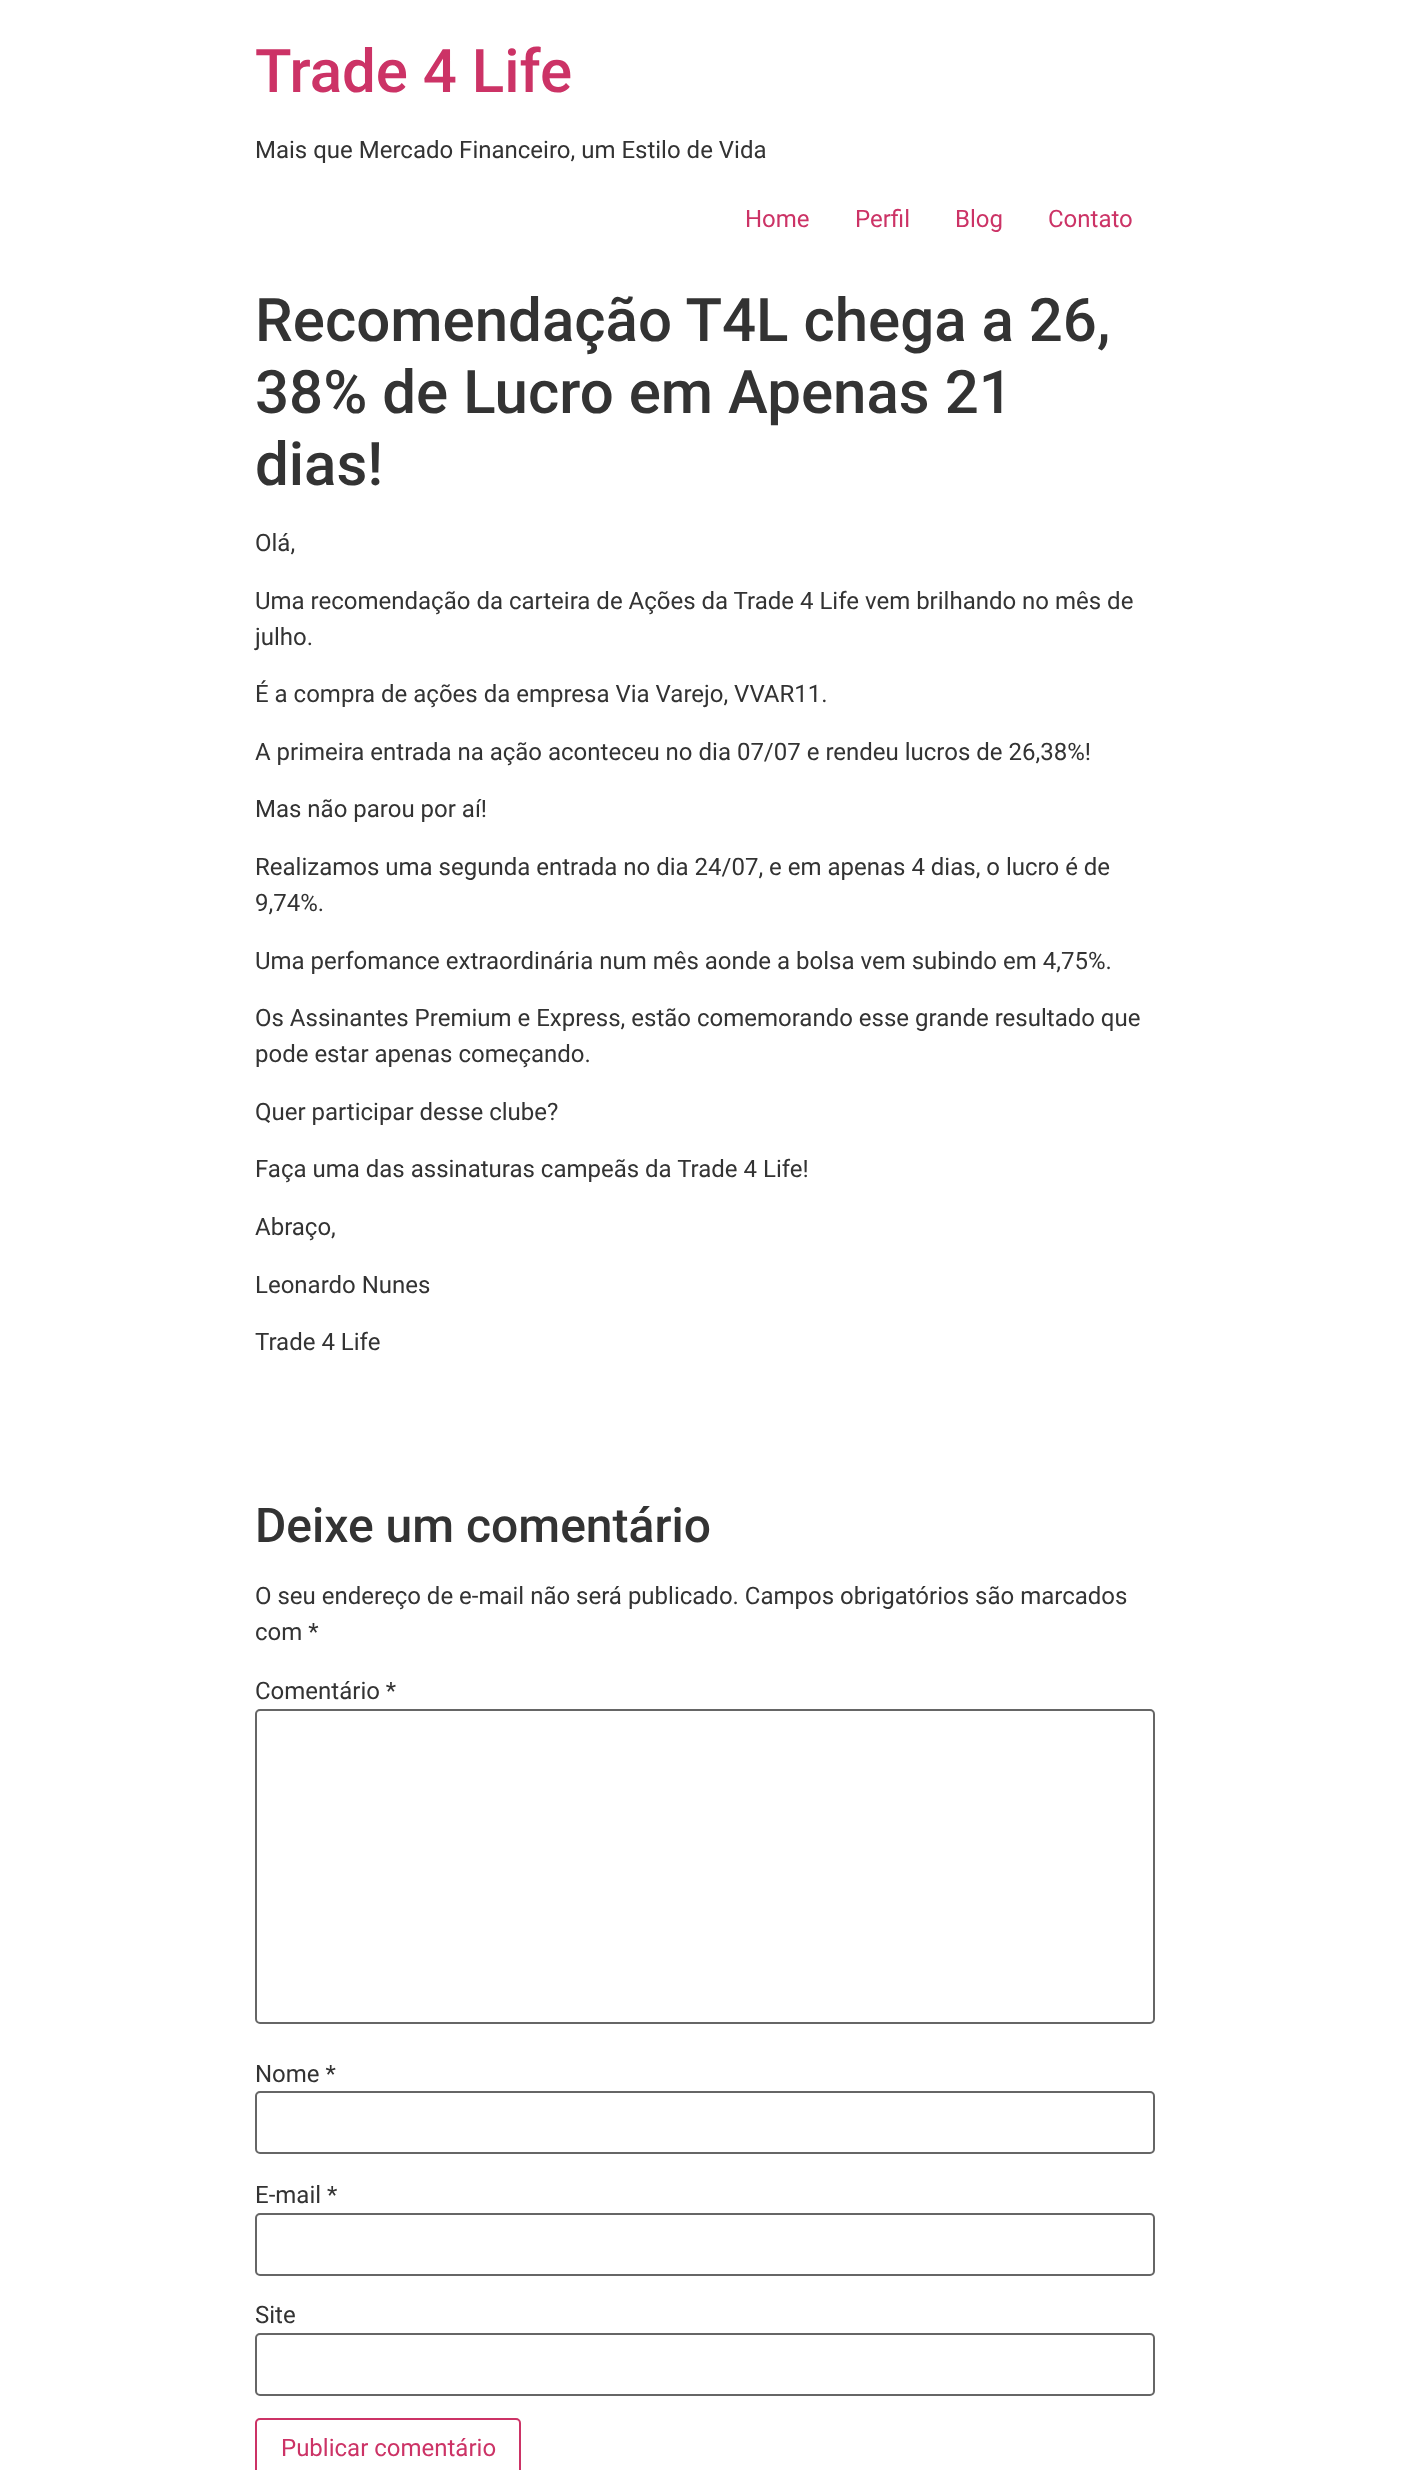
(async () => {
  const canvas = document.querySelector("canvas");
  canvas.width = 1410;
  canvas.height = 2470;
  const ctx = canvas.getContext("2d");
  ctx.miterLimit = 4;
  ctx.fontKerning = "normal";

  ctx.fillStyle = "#ffffff";
  ctx.fillRect(0, 0, 1410, 2470);
  ctx.beginPath();
  ctx.roundRect(256, 1710, 898, 313, 4);
  ctx.strokeStyle = "#666666";
  ctx.lineWidth = 2;
  ctx.stroke();
  ctx.beginPath();
  ctx.roundRect(256, 2092, 898, 61, 4);
  ctx.stroke();
  ctx.beginPath();
  ctx.roundRect(256, 2214, 898, 61, 4);
  ctx.stroke();
  ctx.beginPath();
  ctx.roundRect(256, 2334, 898, 61, 4);
  ctx.stroke();
  ctx.beginPath();
  ctx.roundRect(256, 2419, 264, 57, 4);
  ctx.strokeStyle = "#cc3366";
  ctx.stroke();
  ctx.font = "500 60px Roboto";
  ctx.fillStyle = "#cc3366";
  ctx.fillText("Trade 4 Life", 255, 92);
  ctx.font = "24px Roboto";
  ctx.fillStyle = "#333333";
  ctx.fillText("Mais que Mercado Financeiro, um Estilo de Vida", 255, 158);
  ctx.fillStyle = "#cc3366";
  for (const [text, x, y] of [
    ["Home", 745, 227],
    ["Perfil", 855, 227],
    ["Blog", 955, 227],
    ["Contato", 1048, 227],
  ]) {
    ctx.fillText(text, x, y);
  }
  ctx.font = "500 60px Roboto";
  ctx.fillStyle = "#333333";
  for (const [text, x, y] of [
    ["Recomendação T4L chega a 26,", 255, 341],
    ["38% de Lucro em Apenas 21", 255, 413],
    ["dias!", 255, 485],
  ]) {
    ctx.fillText(text, x, y);
  }
  ctx.font = "24px Roboto";
  for (const [text, x, y] of [
    ["Olá,", 255, 551],
    ["Uma recomendação da carteira de Ações da Trade 4 Life vem brilhando no mês de", 255, 609],
    ["julho.", 255, 645],
    ["É a compra de ações da empresa Via Varejo, VVAR11.", 255, 702],
    ["A primeira entrada na ação aconteceu no dia 07/07 e rendeu lucros de 26,38%!", 255, 760],
    ["Mas não parou por aí!", 255, 817],
    ["Realizamos uma segunda entrada no dia 24/07, e em apenas 4 dias, o lucro é de", 255, 875],
    ["9,74%.", 255, 911],
    ["Uma perfomance extraordinária num mês aonde a bolsa vem subindo em 4,75%.", 255, 969],
    ["Os Assinantes Premium e Express, estão comemorando esse grande resultado que", 255, 1026],
    ["pode estar apenas começando.", 255, 1062],
    ["Quer participar desse clube?", 255, 1120],
    ["Faça uma das assinaturas campeãs da Trade 4 Life!", 255, 1177],
    ["Abraço,", 255, 1235],
    ["Leonardo Nunes", 255, 1293],
    ["Trade 4 Life", 255, 1350],
  ]) {
    ctx.fillText(text, x, y);
  }
  ctx.font = "500 48px Roboto";
  ctx.fillText("Deixe um comentário", 255, 1542);
  ctx.font = "24px Roboto";
  for (const [text, x, y] of [
    ["O seu endereço de e-mail não será publicado. Campos obrigatórios são marcados", 255, 1604],
    ["com *", 255, 1640],
    ["Comentário *", 255, 1699],
    ["Nome *", 255, 2082],
    ["E-mail *", 255, 2203],
    ["Site", 255, 2323],
  ]) {
    ctx.fillText(text, x, y);
  }
  ctx.fillStyle = "#cc3366";
  ctx.fillText("Publicar comentário", 281, 2456);
})();
